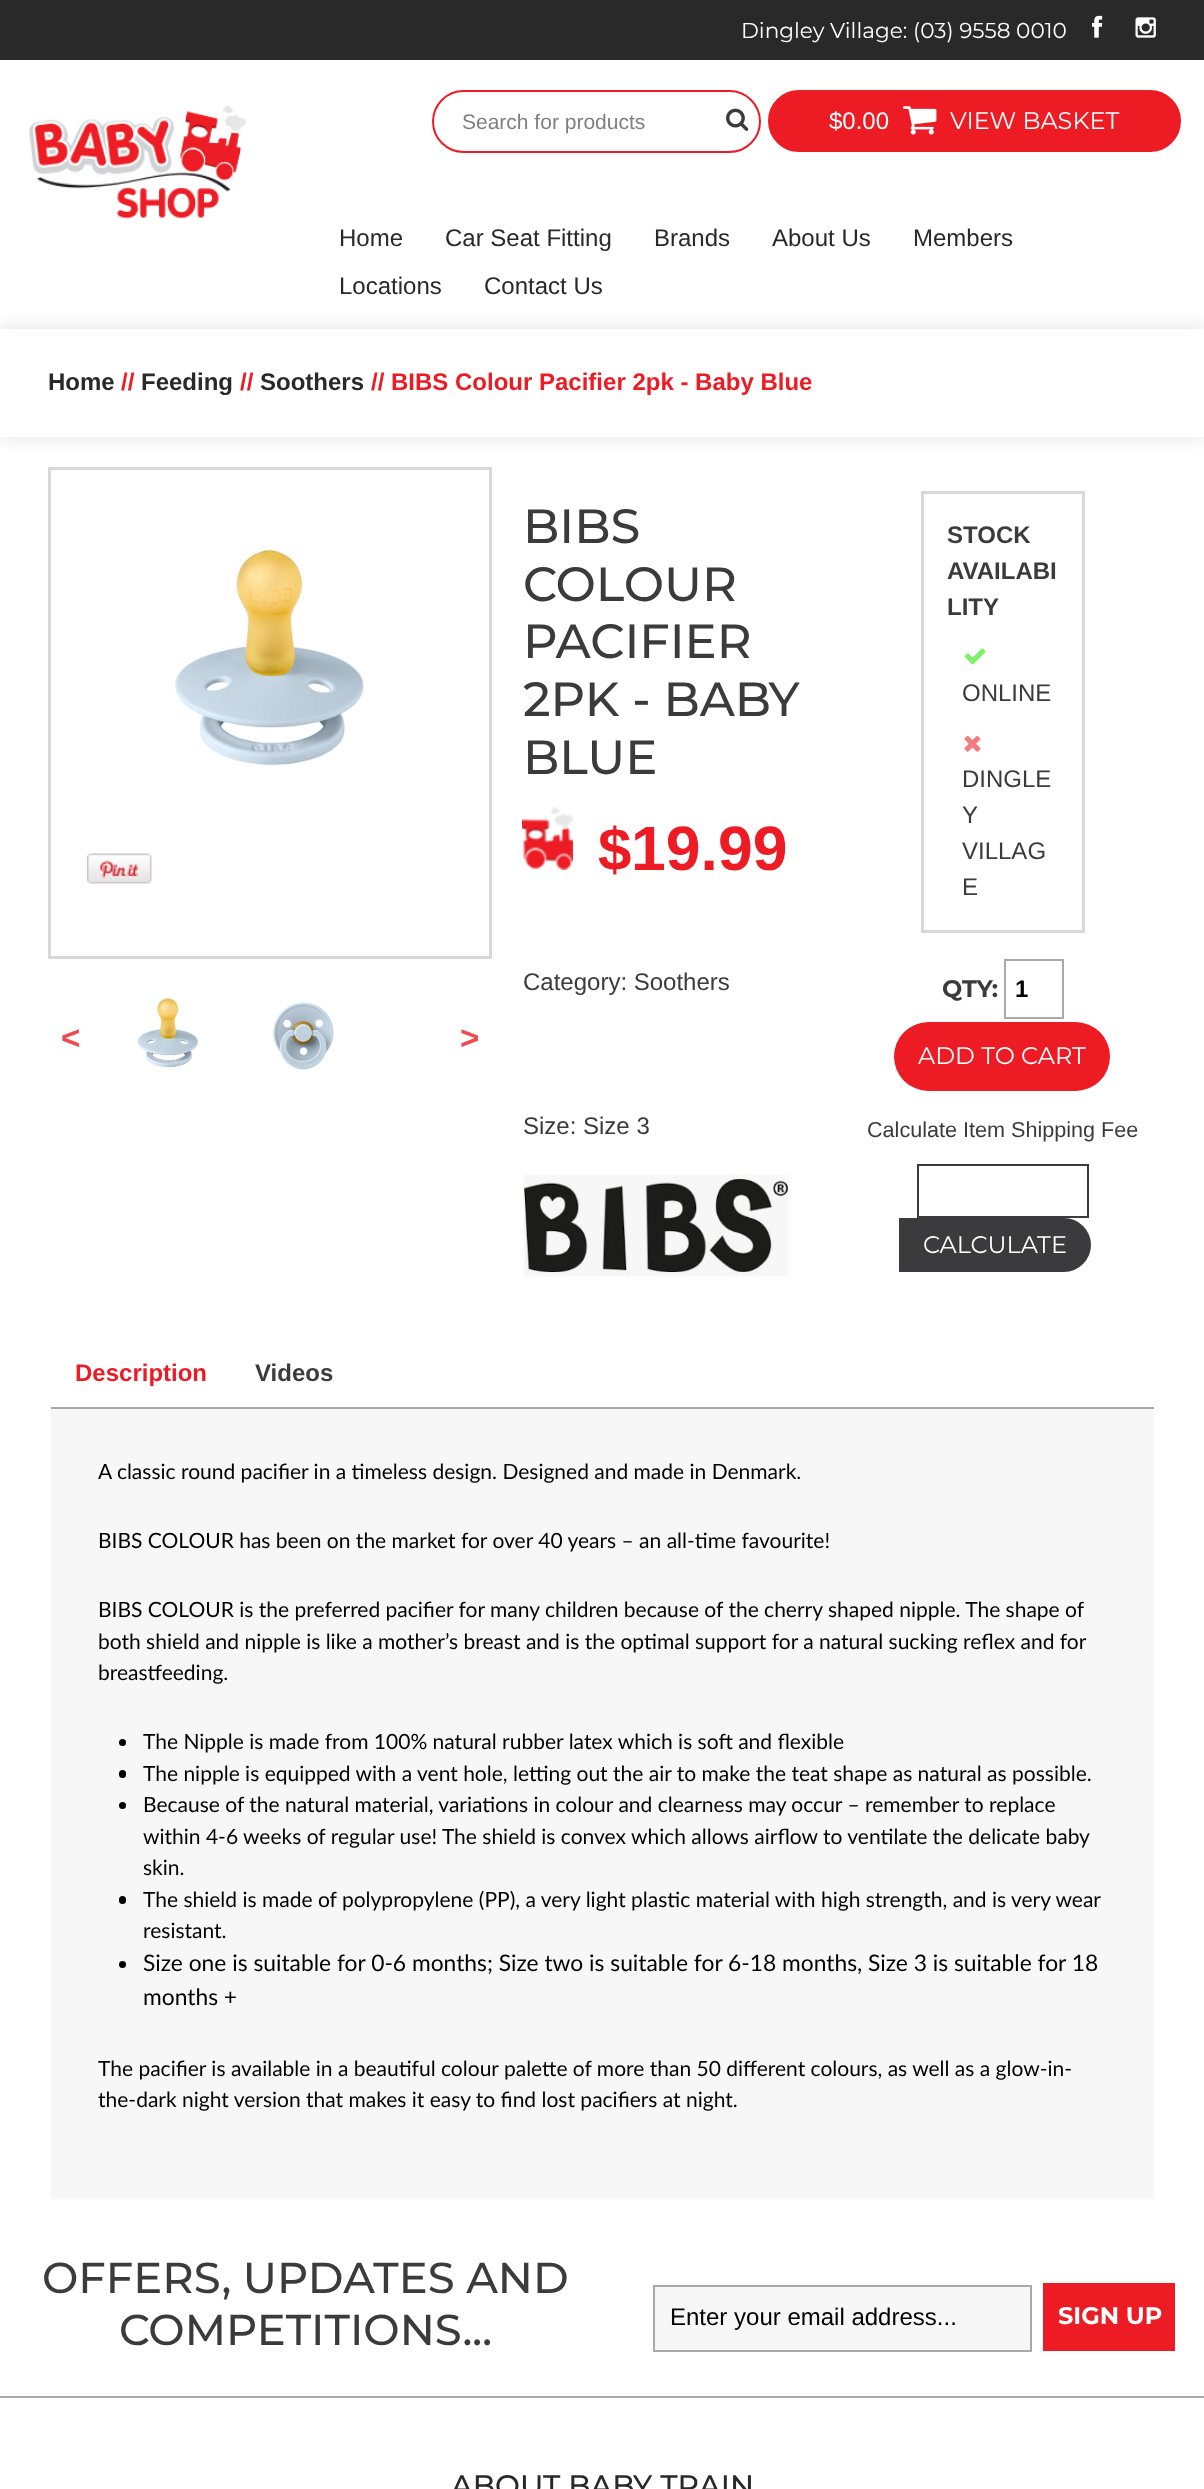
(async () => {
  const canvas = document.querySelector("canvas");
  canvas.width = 1204;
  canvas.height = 2489;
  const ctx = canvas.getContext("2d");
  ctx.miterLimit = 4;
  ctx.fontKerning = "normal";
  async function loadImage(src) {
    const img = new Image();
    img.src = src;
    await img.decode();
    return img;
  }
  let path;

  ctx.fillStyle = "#ffffff";
  ctx.fillRect(0, 0, 1204, 2489);
  ctx.fillStyle = "#292929";
  ctx.fillRect(0, 0, 1204, 60);
  ctx.drawImage(await loadImage("img/1.png"), 1092, 15, 11, 23);
  ctx.drawImage(await loadImage("img/2.png"), 1135, 17, 21, 21);
  ctx.drawImage(await loadImage("img/3.png"), 28, 105, 219, 114);
  ctx.beginPath();
  ctx.roundRect(433, 91, 327, 61, 30.5);
  ctx.strokeStyle = "#ed1c24";
  ctx.lineWidth = 2;
  ctx.stroke();
  ctx.drawImage(await loadImage("img/4.png"), 726, 108, 23, 23);
  ctx.fillStyle = "#ed1c24";
  ctx.beginPath();
  ctx.roundRect(769, 91, 411, 60, 30);
  ctx.fill();
  ctx.stroke();
  ctx.drawImage(await loadImage("img/5.png"), 903, 106, 34, 29);
  ctx.save();
  path = new Path2D("M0 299H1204V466H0ZM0 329H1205V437H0Z");
  ctx.clip(path, "evenodd");
  ctx.fillStyle = "rgba(0, 0, 0, 0.1)";
  ctx.filter = "blur(9px)";
  ctx.beginPath();
  ctx.rect(-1, 327, 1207, 111);
  ctx.fill();
  ctx.filter = "none";
  ctx.restore();
  ctx.strokeStyle = "#d8d8d8";
  ctx.lineWidth = 3;
  ctx.strokeRect(49.5, 468.5, 441, 489);
  ctx.drawImage(await loadImage("img/6.png"), 175, 546, 189, 220);
  ctx.drawImage(await loadImage("img/7.png"), 87, 853, 65, 31);
  ctx.drawImage(await loadImage("img/8.png"), 137, 997, 61, 71);
  ctx.drawImage(await loadImage("img/9.png"), 273, 1002, 61, 68);
  ctx.drawImage(await loadImage("img/10.png"), 522, 807, 51, 63);
  ctx.drawImage(await loadImage("img/11.png"), 522, 1174, 270, 103);
  ctx.strokeRect(922.5, 492.5, 161, 439);
  ctx.drawImage(await loadImage("img/12.png"), 964, 648, 22, 17);
  ctx.drawImage(await loadImage("img/13.png"), 964, 735, 17, 17);
  ctx.strokeStyle = "#a9a9a9";
  ctx.lineWidth = 2;
  ctx.strokeRect(1005, 960, 58, 58);
  ctx.beginPath();
  ctx.roundRect(894, 1022, 216, 69, 34.5);
  ctx.fill();
  ctx.strokeStyle = "#3b3b3d";
  ctx.strokeRect(918, 1165, 170, 52);
  ctx.fillStyle = "#3b3b3d";
  ctx.beginPath();
  ctx.roundRect(899, 1218, 192, 54, [0, 27, 27, 0]);
  ctx.fill();
  ctx.fillStyle = "#f7f7f7";
  ctx.fillRect(51, 1409, 1103, 790);
  ctx.fillStyle = "#a9a9a9";
  ctx.fillRect(51, 1407, 1103, 2);
  ctx.fillStyle = "#000000";
  ctx.beginPath();
  ctx.arc(122.5, 1742.5, 3.5, 0, Math.PI * 2);
  ctx.fill();
  ctx.beginPath();
  ctx.roundRect(119, 1770, 7, 8, 3.5);
  ctx.fill();
  ctx.beginPath();
  ctx.arc(122.5, 1805.5, 3.5, 0, Math.PI * 2);
  ctx.fill();
  ctx.beginPath();
  ctx.roundRect(119, 1896, 7, 8, 3.5);
  ctx.fill();
  ctx.beginPath();
  ctx.arc(122.5, 1964.5, 3.5, 0, Math.PI * 2);
  ctx.fill();
  ctx.fillStyle = "#f7f7f7";
  ctx.beginPath();
  ctx.rect(654, 2286, 377, 65);
  ctx.fill();
  ctx.strokeStyle = "#a9a9a9";
  ctx.stroke();
  ctx.fillStyle = "#ed1c24";
  ctx.fillRect(1043, 2283, 132, 68);
  ctx.fillStyle = "#a9a9a9";
  ctx.fillRect(0, 2396, 1204, 2);
  ctx.font = "21.6px Montserrat";
  ctx.fillStyle = "#ffffff";
  ctx.fillText("Dingley Village: (03) 9558 0010", 741, 38);
  ctx.font = "21px Liberation Sans";
  ctx.fillStyle = "#808080";
  ctx.fillText("Search for products", 462, 129);
  ctx.font = "24px Liberation Sans";
  ctx.fillStyle = "#ffffff";
  ctx.fillText("$0.00", 829, 129);
  ctx.font = "24px Montserrat";
  ctx.fillText("VIEW BASKET", 950, 129);
  ctx.font = "24px Liberation Sans";
  ctx.fillStyle = "#292929";
  for (const [text, x, y] of [
    ["Home", 339, 246],
    ["Car Seat Fitting", 445, 246],
    ["Brands", 654, 246],
    ["About Us", 772, 246],
    ["Members", 913, 246],
    ["Locations", 339, 294],
    ["Contact Us", 484, 294],
  ]) {
    ctx.fillText(text, x, y);
  }
  ctx.font = "bold 24px Liberation Sans";
  ctx.fillText("Home", 48, 390);
  ctx.fillStyle = "#ed1c24";
  ctx.fillText("//", 121, 390);
  ctx.fillStyle = "#292929";
  ctx.fillText("Feeding", 141, 390);
  ctx.fillStyle = "#ed1c24";
  ctx.fillText("//", 240, 390);
  ctx.fillStyle = "#292929";
  ctx.fillText("Soothers", 260, 390);
  ctx.fillStyle = "#ed1c24";
  ctx.fillText("// BIBS Colour Pacifier 2pk - Baby Blue", 371, 390);
  ctx.font = "bold 33px Liberation Sans";
  ctx.fillStyle = "#f14950";
  ctx.fillText("<", 61, 1049);
  ctx.fillText(">", 460, 1049);
  ctx.font = "500 48px Montserrat";
  ctx.fillStyle = "#3b3b3d";
  for (const [text, x, y] of [
    ["BIBS", 523, 543],
    ["COLOUR", 523, 601],
    ["PACIFIER", 523, 658],
    ["2PK - BABY", 523, 716],
    ["BLUE", 523, 774],
  ]) {
    ctx.fillText(text, x, y);
  }
  ctx.font = "bold 60px Liberation Sans";
  ctx.fillStyle = "#ed1c24";
  ctx.fillText("$", 598, 870);
  ctx.font = "bold 62.5px Liberation Sans";
  ctx.fillText("19.99", 631, 870);
  ctx.font = "24px Liberation Sans";
  ctx.fillStyle = "#3b3b3d";
  ctx.fillText("Category: Soothers", 523, 990);
  ctx.fillText("Size: Size 3", 523, 1134);
  ctx.font = "bold 24px Liberation Sans";
  for (const [text, x, y] of [
    ["STOCK", 947, 543],
    ["AVAILABI", 947, 579],
    ["LITY", 947, 615],
  ]) {
    ctx.fillText(text, x, y);
  }
  ctx.font = "24px Liberation Sans";
  for (const [text, x, y] of [
    ["ONLINE", 962, 701],
    ["DINGLE", 962, 787],
    ["Y", 962, 823],
    ["VILLAG", 962, 859],
    ["E", 962, 895],
  ]) {
    ctx.fillText(text, x, y);
  }
  ctx.font = "bold 24px Montserrat";
  ctx.fillText("QTY:", 942, 997);
  ctx.font = "bold 24px Liberation Sans";
  ctx.fillStyle = "#000000";
  ctx.fillText("1", 1015, 997);
  ctx.font = "24px Montserrat";
  ctx.fillStyle = "#ffffff";
  ctx.fillText("ADD TO CART", 918, 1064);
  ctx.font = "21.6px Liberation Sans";
  ctx.fillStyle = "#3b3b3d";
  ctx.fillText("Calculate Item Shipping Fee", 867, 1137);
  ctx.font = "24px Montserrat";
  ctx.fillStyle = "#ffffff";
  ctx.fillText("CALCULATE", 923, 1253);
  ctx.font = "bold 24px Liberation Sans";
  ctx.fillStyle = "#ed1c24";
  ctx.fillText("Description", 75, 1381);
  ctx.fillStyle = "#3b3b3d";
  ctx.fillText("Videos", 255, 1381);
  ctx.font = "21px Lato";
  ctx.fillStyle = "#000000";
  for (const [text, x, y] of [
    ["A classic round pacifier in a timeless design. Designed and made in Denmark.", 98, 1479],
    ["BIBS COLOUR has been on the market for over 40 years – an all-time favourite!", 98, 1548],
    ["BIBS COLOUR is the preferred pacifier for many children because of the cherry shaped nipple. The shape of", 98, 1617],
    ["both shield and nipple is like a mother’s breast and is the optimal support for a natural sucking reflex and for", 98, 1649],
    ["breastfeeding.", 98, 1680],
    ["The Nipple is made from 100% natural rubber latex which is soft and flexible", 143, 1749],
    ["The nipple is equipped with a vent hole, letting out the air to make the teat shape as natural as possible.", 143, 1781],
    ["Because of the natural material, variations in colour and clearness may occur – remember to replace", 143, 1812],
    ["within 4-6 weeks of regular use! The shield is convex which allows airflow to ventilate the delicate baby", 143, 1844],
    ["skin.", 143, 1875],
    ["The shield is made of polypropylene (PP), a very light plastic material with high strength, and is very wear", 143, 1907],
    ["resistant.", 143, 1938],
  ]) {
    ctx.fillText(text, x, y);
  }
  ctx.font = "22.8px Lato";
  ctx.fillText("Size one is suitable for 0-6 months; Size two is suitable for 6-18 months, Size 3 is suitable for 18", 143, 1971);
  ctx.fillText("months +", 143, 2005);
  ctx.font = "21px Lato";
  ctx.fillText("The pacifier is available in a beautiful colour palette of more than 50 different colours, as well as a glow-in-", 98, 2076);
  ctx.fillText("the-dark night version that makes it easy to find lost pacifiers at night.", 98, 2107);
  ctx.font = "500 43.25px Montserrat";
  ctx.fillStyle = "#3b3b3d";
  ctx.fillText("OFFERS, UPDATES AND", 42, 2293);
  ctx.fillText("COMPETITIONS...", 119, 2345);
  ctx.font = "24px Liberation Sans";
  ctx.fillStyle = "#000000";
  ctx.fillText("Enter your email address...", 670, 2325);
  ctx.font = "bold 24px Montserrat";
  ctx.fillStyle = "#ffffff";
  ctx.fillText("SIGN UP", 1058, 2324);
  ctx.font = "500 29.6px Montserrat";
  ctx.fillStyle = "#292929";
  ctx.fillText("ABOUT BABY TRAIN", 451, 2496);
})();
